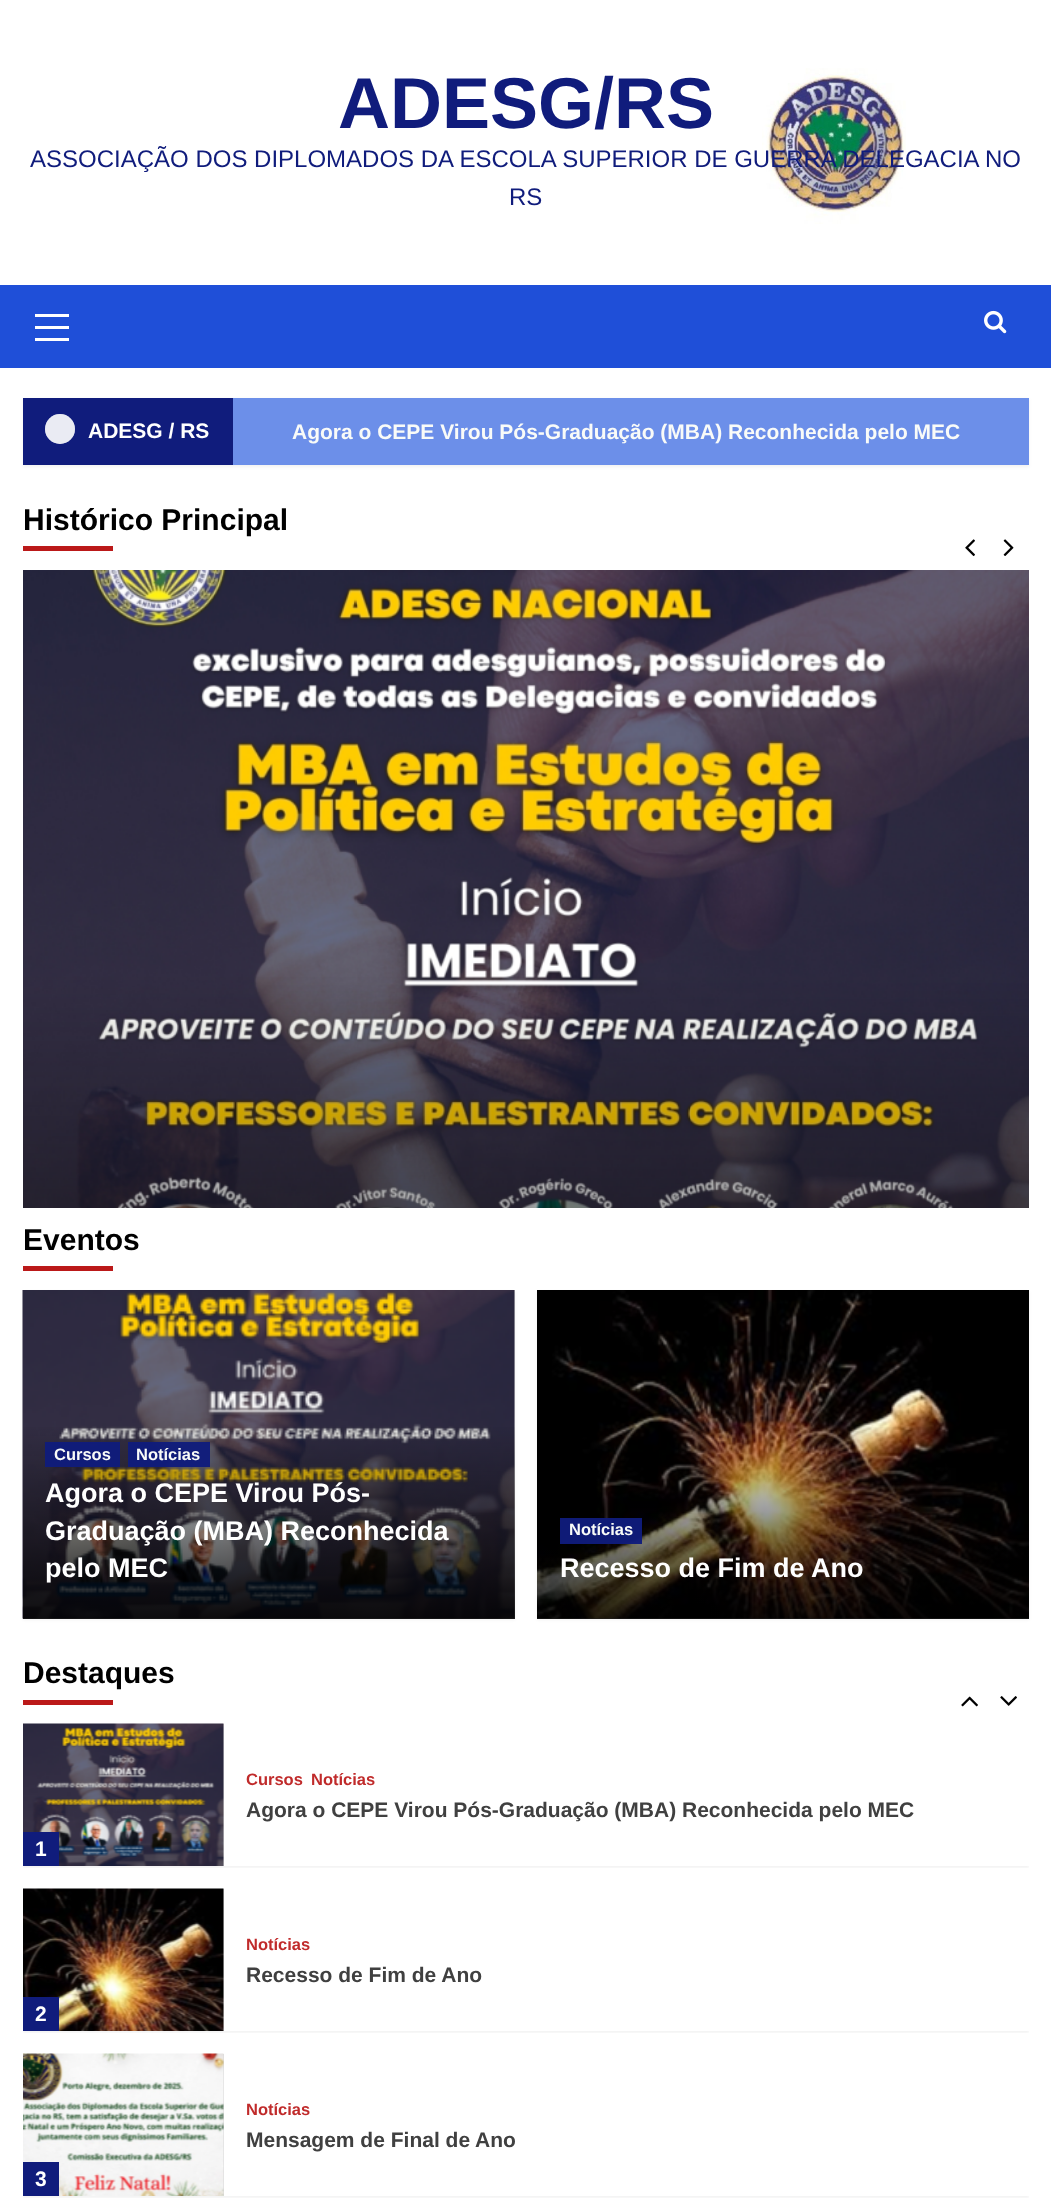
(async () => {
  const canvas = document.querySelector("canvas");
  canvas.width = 1051;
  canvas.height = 2208;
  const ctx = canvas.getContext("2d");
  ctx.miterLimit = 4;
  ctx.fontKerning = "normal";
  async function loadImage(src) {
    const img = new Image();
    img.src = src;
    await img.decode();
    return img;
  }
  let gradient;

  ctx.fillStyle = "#ffffff";
  ctx.fillRect(0, 0, 1051, 2208);
  ctx.drawImage(await loadImage("img/1.png"), 762, 68, 144, 156);
  for (const [x, y, w, h, color] of [
    [0, 285, 1051, 83, "#1f4fd8"],
    [35, 326, 34, 3, "#ffffff"],
    [35, 314, 34, 3, "#ffffff"],
    [35, 338, 34, 3, "#ffffff"],
  ]) {
    ctx.fillStyle = color;
    ctx.fillRect(x, y, w, h);
  }
  ctx.drawImage(await loadImage("img/2.png"), 984, 310, 23, 24);
  ctx.fillStyle = "rgba(0, 0, 0, 0.05)";
  ctx.filter = "blur(1.5px)";
  ctx.beginPath();
  ctx.rect(23, 399, 1006, 68);
  ctx.fill();
  ctx.filter = "none";
  ctx.fillStyle = "#6c8fe9";
  ctx.fillRect(233, 398, 796, 67);
  ctx.fillStyle = "#101c7c";
  ctx.fillRect(23, 398, 210, 67);
  ctx.fillStyle = "#b7bbd8";
  ctx.beginPath();
  ctx.arc(60, 429, 15, 0, Math.PI * 2);
  ctx.fill();
  ctx.fillStyle = "rgba(255, 255, 255, 0.7)";
  ctx.beginPath();
  ctx.arc(60, 429, 15, 0, Math.PI * 2);
  ctx.fill();
  ctx.fillStyle = "#bb1919";
  ctx.fillRect(23, 546, 90, 5);
  ctx.drawImage(await loadImage("img/3.png"), 965, 539, 10, 18);
  ctx.drawImage(await loadImage("img/4.png"), 1003, 539, 11, 17);
  ctx.drawImage(await loadImage("img/5.png"), 23, 570, 1006, 638);
  ctx.fillRect(23, 1266, 90, 5);
  ctx.fillStyle = "rgba(0, 0, 0, 0.05)";
  ctx.filter = "blur(1.5px)";
  ctx.beginPath();
  ctx.rect(23, 1292, 492, 328);
  ctx.fill();
  ctx.filter = "none";
  ctx.fillStyle = "#d8d8d8";
  ctx.fillRect(23, 1290, 492, 329);
  ctx.drawImage(await loadImage("img/6.png"), 22, 1290, 493, 329);
  gradient = ctx.createLinearGradient(269, 1290, 269, 1619);
  gradient.addColorStop(0.4, "rgba(0, 0, 0, 0)");
  gradient.addColorStop(1, "rgba(0, 0, 0, 0.85)");
  ctx.fillStyle = gradient;
  ctx.fillRect(23, 1427, 492, 192);
  ctx.fillStyle = "rgba(16, 28, 124, 0.96)";
  ctx.fillRect(45, 1442, 75, 25);
  ctx.fillRect(128, 1442, 82, 25);
  ctx.fillStyle = "rgba(0, 0, 0, 0.05)";
  ctx.filter = "blur(1.5px)";
  ctx.beginPath();
  ctx.rect(537, 1292, 492, 328);
  ctx.fill();
  ctx.filter = "none";
  ctx.fillStyle = "#d8d8d8";
  ctx.fillRect(537, 1618, 492, 1);
  ctx.drawImage(await loadImage("img/7.png"), 537, 1290, 492, 329);
  gradient = ctx.createLinearGradient(783, 1290, 783, 1619);
  gradient.addColorStop(0.4, "rgba(0, 0, 0, 0)");
  gradient.addColorStop(1, "rgba(0, 0, 0, 0.85)");
  ctx.fillStyle = gradient;
  ctx.fillRect(537, 1427, 492, 192);
  ctx.fillStyle = "rgba(16, 28, 124, 0.96)";
  ctx.fillRect(560, 1518, 82, 26);
  ctx.fillStyle = "#bb1919";
  ctx.fillRect(23, 1700, 90, 5);
  ctx.drawImage(await loadImage("img/8.png"), 961, 1696, 17, 11);
  ctx.drawImage(await loadImage("img/9.png"), 1000, 1696, 17, 10);
  ctx.save();
  ctx.beginPath();
  ctx.rect(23, 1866, 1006, 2);
  ctx.clip();
  ctx.fillStyle = "rgba(0, 0, 0, 0.05)";
  ctx.filter = "blur(1.5px)";
  ctx.beginPath();
  ctx.rect(23, 1725, 1006, 143);
  ctx.fill();
  ctx.filter = "none";
  ctx.restore();
  ctx.fillStyle = "#d8d8d8";
  ctx.fillRect(223, 1724, 1, 142);
  ctx.drawImage(await loadImage("img/10.png"), 23, 1723, 201, 143);
  ctx.fillStyle = "#101c7c";
  ctx.fillRect(23, 1832, 36, 34);
  ctx.save();
  ctx.beginPath();
  ctx.rect(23, 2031, 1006, 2);
  ctx.clip();
  ctx.fillStyle = "rgba(0, 0, 0, 0.05)";
  ctx.filter = "blur(1.5px)";
  ctx.beginPath();
  ctx.rect(23, 1890, 1006, 143);
  ctx.fill();
  ctx.filter = "none";
  ctx.restore();
  ctx.fillStyle = "#d8d8d8";
  ctx.fillRect(223, 1889, 1, 142);
  ctx.drawImage(await loadImage("img/11.png"), 23, 1888, 201, 143);
  ctx.fillStyle = "#101c7c";
  ctx.fillRect(23, 1997, 36, 34);
  ctx.save();
  ctx.beginPath();
  ctx.rect(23, 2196, 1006, 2);
  ctx.clip();
  ctx.fillStyle = "rgba(0, 0, 0, 0.05)";
  ctx.filter = "blur(1.5px)";
  ctx.beginPath();
  ctx.rect(23, 2055, 1006, 143);
  ctx.fill();
  ctx.filter = "none";
  ctx.restore();
  ctx.fillStyle = "#d8d8d8";
  ctx.fillRect(223, 2054, 1, 142);
  ctx.drawImage(await loadImage("img/12.png"), 23, 2053, 201, 143);
  ctx.fillStyle = "#101c7c";
  ctx.fillRect(23, 2162, 36, 34);
  ctx.font = "bold 72px Liberation Sans";
  ctx.fillText("ADESG/RS", 338, 128);
  ctx.font = "24px Liberation Sans";
  ctx.fillText("ASSOCIAÇÃO DOS DIPLOMADOS DA ESCOLA SUPERIOR DE GUERRA DELEGACIA NO", 30, 167);
  ctx.fillText("RS", 509, 205);
  ctx.font = "bold 21px Liberation Sans";
  ctx.fillStyle = "#ffffff";
  ctx.fillText("ADESG / RS", 88, 438);
  ctx.fillStyle = "#f9fbf8";
  ctx.fillText("Agora o CEPE Virou Pós-Graduação (MBA) Reconhecida pelo MEC", 292, 439);
  ctx.font = "bold 30px Liberation Sans";
  ctx.fillStyle = "#000000";
  ctx.fillText("Histórico Principal", 23, 530);
  ctx.fillText("Eventos", 23, 1250);
  ctx.font = "bold 16.5px Liberation Sans";
  ctx.fillStyle = "#f9fbf8";
  ctx.fillText("Cursos", 54, 1460);
  ctx.fillText("Notícias", 136, 1460);
  ctx.font = "bold 27px Liberation Sans";
  ctx.fillStyle = "#ffffff";
  for (const [text, x, y] of [
    ["Agora o CEPE Virou Pós-", 45, 1502],
    ["Graduação (MBA) Reconhecida", 45, 1540],
    ["pelo MEC", 45, 1577],
  ]) {
    ctx.fillText(text, x, y);
  }
  ctx.font = "bold 16.5px Liberation Sans";
  ctx.fillStyle = "#f9fbf8";
  ctx.fillText("Notícias", 569, 1535);
  ctx.font = "bold 27px Liberation Sans";
  ctx.fillStyle = "#ffffff";
  ctx.fillText("Recesso de Fim de Ano", 560, 1577);
  ctx.font = "bold 30px Liberation Sans";
  ctx.fillStyle = "#000000";
  ctx.fillText("Destaques", 23, 1683);
  ctx.font = "bold 16.5px Liberation Sans";
  ctx.fillStyle = "#c02b2b";
  ctx.fillText("Cursos", 246, 1785);
  ctx.fillText("Notícias", 311, 1785);
  ctx.font = "bold 21px Liberation Sans";
  ctx.fillStyle = "#404040";
  ctx.fillText("Agora o CEPE Virou Pós-Graduação (MBA) Reconhecida pelo MEC", 246, 1817);
  ctx.fillStyle = "#ffffff";
  ctx.fillText("1", 35, 1856);
  ctx.font = "bold 16.5px Liberation Sans";
  ctx.fillStyle = "#c02b2b";
  ctx.fillText("Notícias", 246, 1950);
  ctx.font = "bold 21px Liberation Sans";
  ctx.fillStyle = "#404040";
  ctx.fillText("Recesso de Fim de Ano", 246, 1982);
  ctx.fillStyle = "#ffffff";
  ctx.fillText("2", 35, 2021);
  ctx.font = "bold 16.5px Liberation Sans";
  ctx.fillStyle = "#c02b2b";
  ctx.fillText("Notícias", 246, 2115);
  ctx.font = "bold 21px Liberation Sans";
  ctx.fillStyle = "#404040";
  ctx.fillText("Mensagem de Final de Ano", 246, 2147);
  ctx.fillStyle = "#ffffff";
  ctx.fillText("3", 35, 2186);
})();
